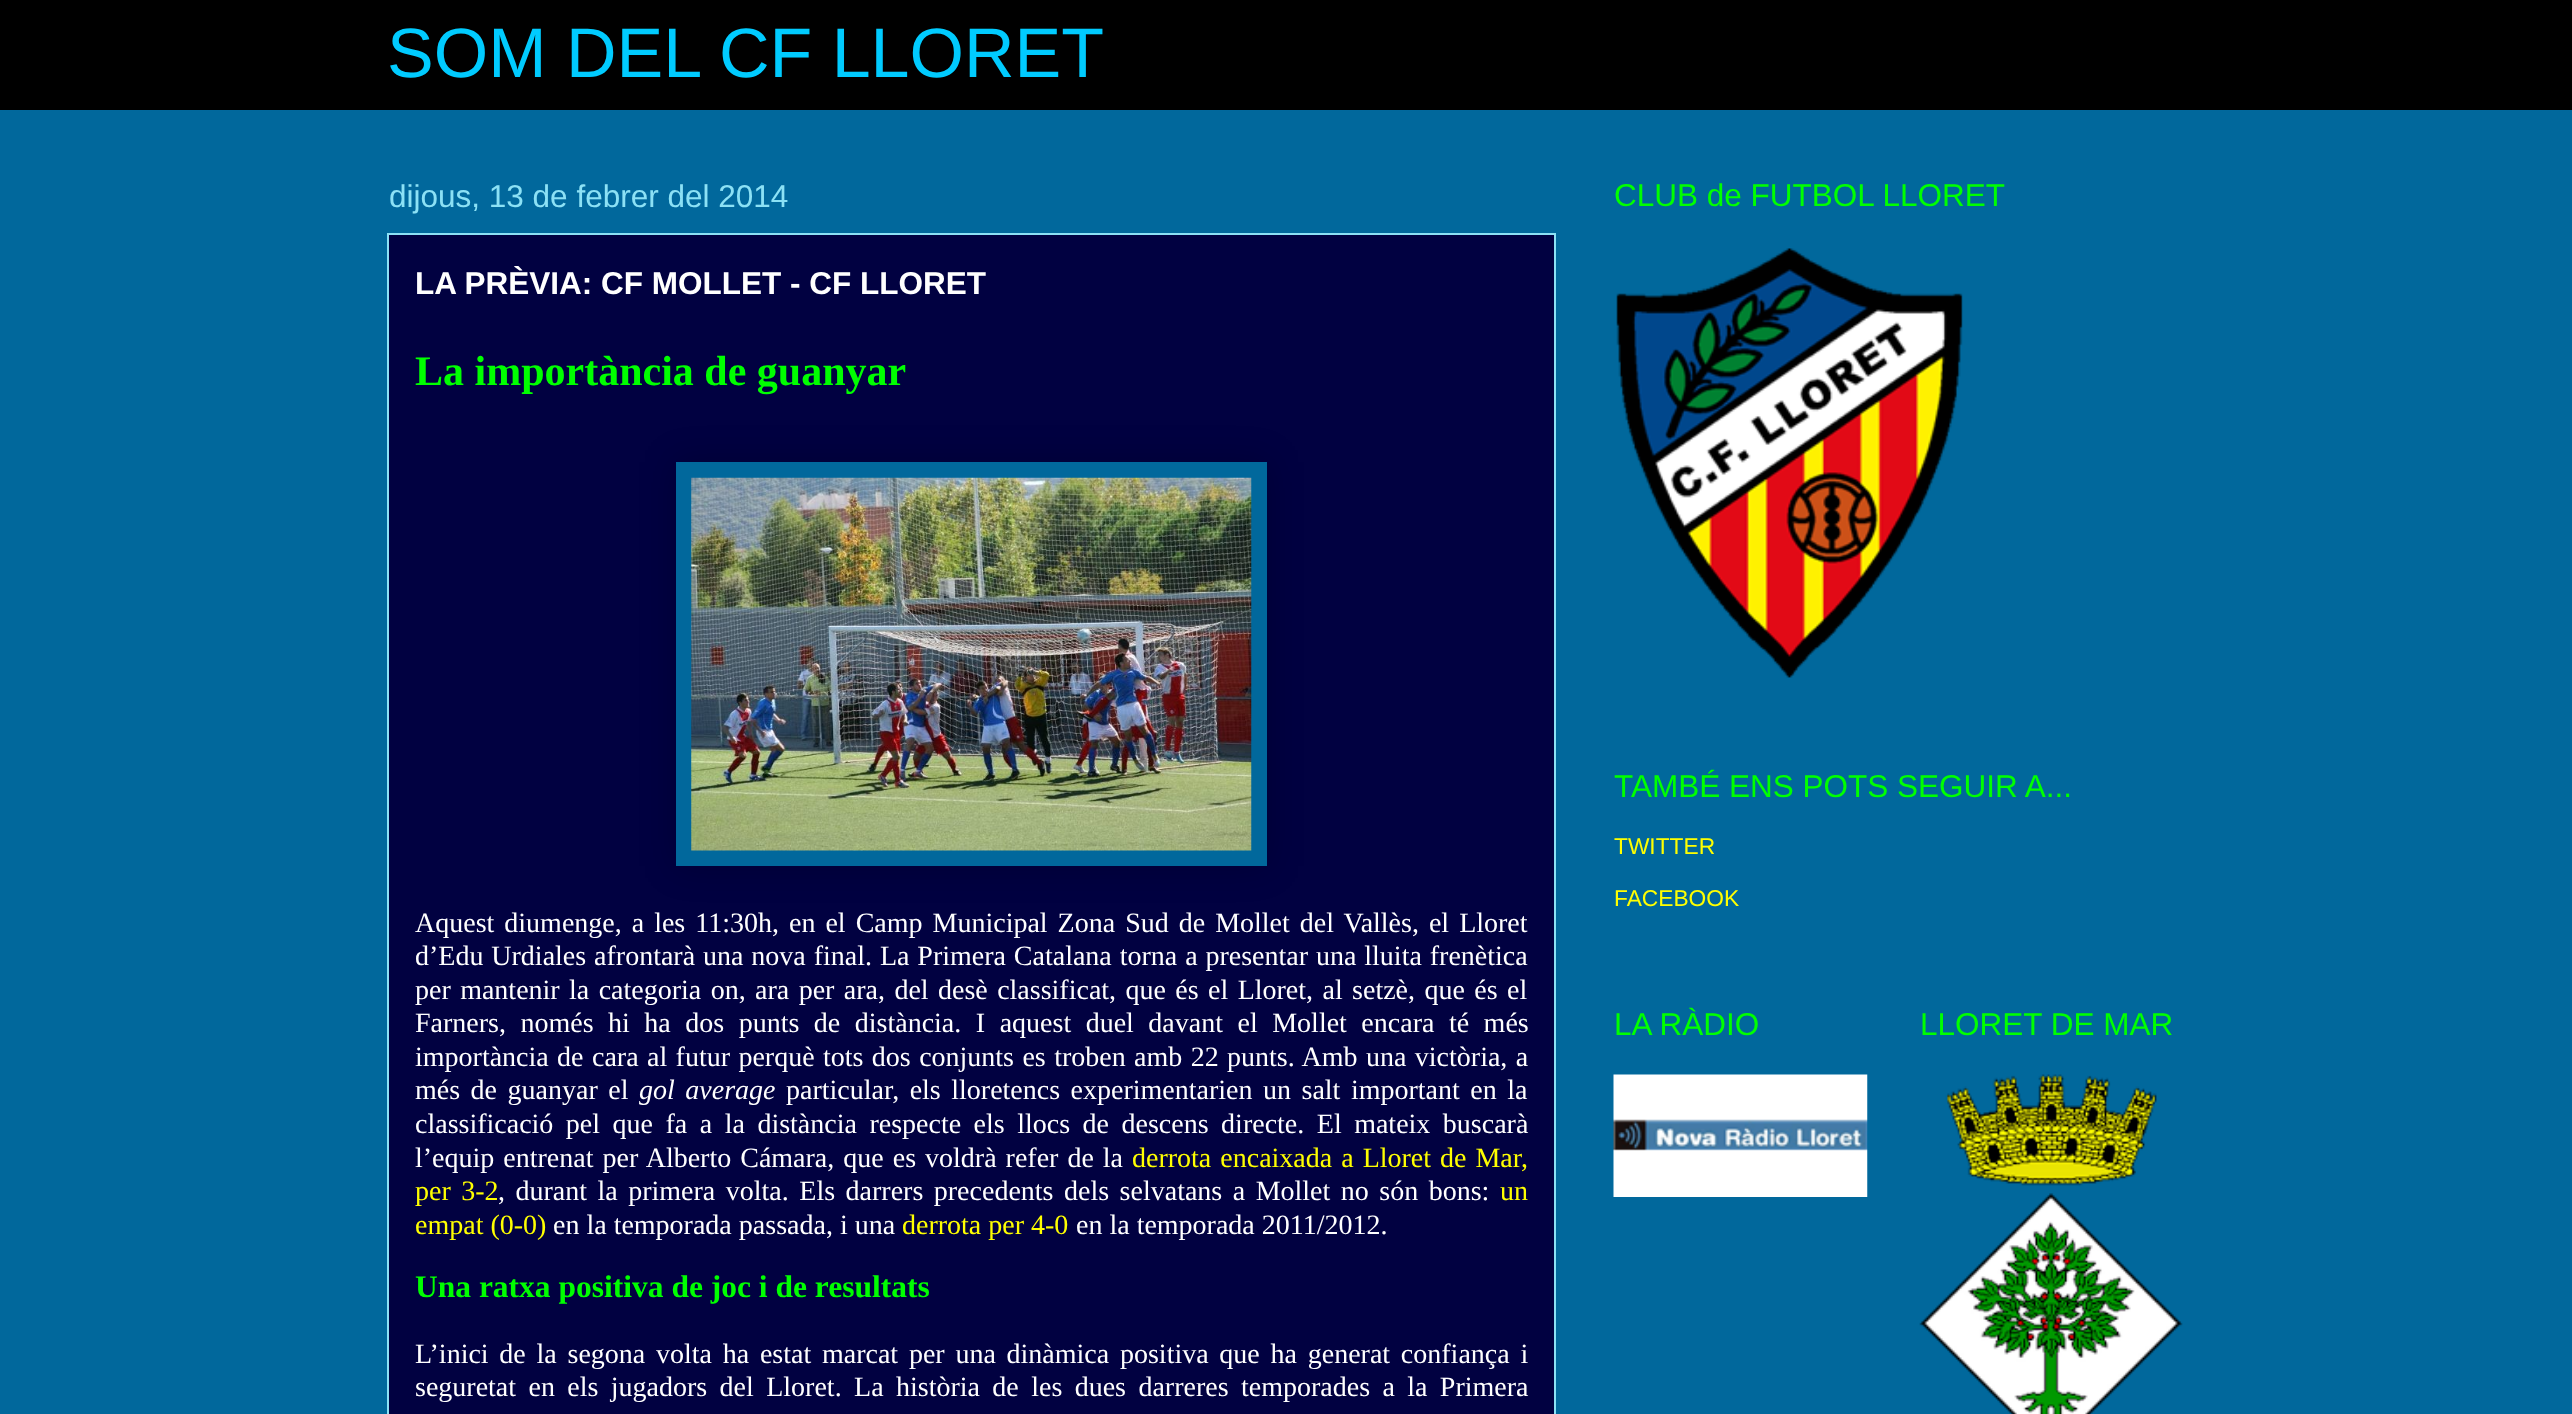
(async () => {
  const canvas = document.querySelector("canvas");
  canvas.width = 2572;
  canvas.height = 1414;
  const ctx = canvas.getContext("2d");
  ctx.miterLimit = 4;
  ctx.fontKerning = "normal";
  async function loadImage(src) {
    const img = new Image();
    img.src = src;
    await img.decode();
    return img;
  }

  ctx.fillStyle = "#01689c";
  ctx.fillRect(0, 0, 2572, 1414);
  ctx.fillStyle = "#000000";
  ctx.fillRect(0, 0, 2572, 110);
  ctx.fillStyle = "#010141";
  ctx.beginPath();
  ctx.rect(388, 234, 1167, 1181);
  ctx.fill();
  ctx.strokeStyle = "#8ce1f5";
  ctx.lineWidth = 2;
  ctx.stroke();
  ctx.fillStyle = "rgba(0, 0, 0, 0.2)";
  ctx.filter = "blur(17.5px)";
  ctx.beginPath();
  ctx.rect(676, 462, 591, 404);
  ctx.fill();
  ctx.filter = "none";
  ctx.fillStyle = "#01689c";
  ctx.fillRect(676, 462, 591, 404);
  ctx.drawImage(await loadImage("img/1.png"), 691, 477, 561, 374);
  ctx.drawImage(await loadImage("img/2.png"), 1616, 248, 347, 430);
  ctx.drawImage(await loadImage("img/3.png"), 1613, 1074, 255, 123);
  ctx.drawImage(await loadImage("img/4.png"), 1919, 1074, 264, 340);
  ctx.font = "70px Liberation Sans";
  ctx.fillStyle = "#00cbff";
  ctx.fillText("SOM DEL CF LLORET", 387, 77);
  ctx.font = "31.5px Liberation Sans";
  ctx.fillStyle = "#8ce1f5";
  ctx.fillText("dijous, 13 de febrer del 2014", 389, 207);
  ctx.font = "bold 31.5px Liberation Sans";
  ctx.fillStyle = "#ffffff";
  ctx.fillText("LA PRÈVIA: CF MOLLET - CF LLORET", 415, 294);
  ctx.font = "bold 42px Liberation Serif";
  ctx.fillStyle = "#00ff00";
  ctx.fillText("La importància de guanyar", 415, 385);
  ctx.wordSpacing = "3px";
  ctx.font = "28px Liberation Serif";
  ctx.fillStyle = "#ffffff";
  ctx.fillText("Aquest diumenge, a les 11:30h, en el Camp Municipal Zona Sud de Mollet del Vallès, el Lloret", 415, 932);
  ctx.wordSpacing = "0.9px";
  ctx.fillText("d’Edu Urdiales afrontarà una nova final. La Primera Catalana torna a presentar una lluita frenètica", 415, 965);
  ctx.wordSpacing = "2.4px";
  ctx.fillText("per mantenir la categoria on, ara per ara, del desè classificat, que és el Lloret, al setzè, que és el", 415, 999);
  ctx.wordSpacing = "7.5px";
  ctx.fillText("Farners, només hi ha dos punts de distància. I aquest duel davant el Mollet encara té més", 415, 1032);
  ctx.wordSpacing = "1.4px";
  ctx.fillText("importància de cara al futur perquè tots dos conjunts es troben amb 22 punts. Amb una victòria, a", 415, 1066);
  ctx.wordSpacing = "3.5px";
  ctx.fillText("més de guanyar el", 415, 1099);
  ctx.font = "italic 28px Liberation Serif";
  ctx.fillText("gol average", 639, 1099);
  ctx.font = "28px Liberation Serif";
  ctx.fillText("particular, els lloretencs experimentarien un salt important en la", 786, 1099);
  ctx.wordSpacing = "5.5px";
  ctx.fillText("classificació pel que fa a la distància respecte els llocs de descens directe. El mateix buscarà", 415, 1133);
  ctx.wordSpacing = "2px";
  ctx.fillText("l’equip entrenat per Alberto Cámara, que es voldrà refer de la", 415, 1167);
  ctx.fillStyle = "#ffff00";
  ctx.fillText("derrota encaixada a Lloret de Mar,", 1132, 1167);
  ctx.wordSpacing = "3.5px";
  ctx.fillText("per 3-2", 415, 1200);
  ctx.fillStyle = "#ffffff";
  ctx.fillText(", durant la primera volta. Els darrers precedents dels selvatans a Mollet no són bons:", 498, 1200);
  ctx.wordSpacing = "0px";
  ctx.fillStyle = "#ffff00";
  ctx.fillText("un", 1500, 1200);
  ctx.fillText("empat (0-0)", 415, 1234);
  ctx.fillStyle = "#ffffff";
  ctx.fillText("en la temporada passada, i una", 553, 1234);
  ctx.fillStyle = "#ffff00";
  ctx.fillText("derrota per 4-0", 902, 1234);
  ctx.fillStyle = "#ffffff";
  ctx.fillText("en la temporada 2011/2012.", 1076, 1234);
  ctx.font = "bold 31.5px Liberation Serif";
  ctx.fillStyle = "#00ff00";
  ctx.fillText("Una ratxa positiva de joc i de resultats", 415, 1297);
  ctx.wordSpacing = "3.75px";
  ctx.font = "28px Liberation Serif";
  ctx.fillStyle = "#ffffff";
  ctx.fillText("L’inici de la segona volta ha estat marcat per una dinàmica positiva que ha generat confiança i", 415, 1363);
  ctx.wordSpacing = "5.4px";
  ctx.fillText("seguretat en els jugadors del Lloret. La història de les dues darreres temporades a la Primera", 415, 1396);
  ctx.wordSpacing = "0px";
  ctx.font = "31.5px Liberation Sans";
  ctx.fillStyle = "#00ff00";
  ctx.fillText("CLUB de FUTBOL LLORET", 1614, 206);
  ctx.fillText("TAMBÉ ENS POTS SEGUIR A...", 1614, 797);
  ctx.font = "22.75px Liberation Sans";
  ctx.fillStyle = "#ffff00";
  ctx.fillText("TWITTER", 1614, 854);
  ctx.fillText("FACEBOOK", 1614, 906);
  ctx.font = "31.5px Liberation Sans";
  ctx.fillStyle = "#00ff00";
  ctx.fillText("LA RÀDIO", 1614, 1035);
  ctx.fillText("LLORET DE MAR", 1920, 1035);
})();
